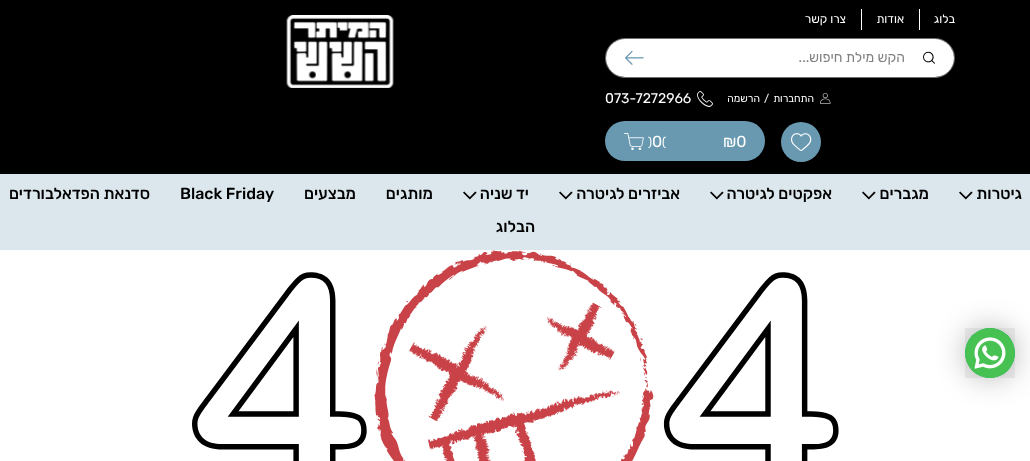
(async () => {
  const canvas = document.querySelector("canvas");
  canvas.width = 1030;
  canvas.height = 461;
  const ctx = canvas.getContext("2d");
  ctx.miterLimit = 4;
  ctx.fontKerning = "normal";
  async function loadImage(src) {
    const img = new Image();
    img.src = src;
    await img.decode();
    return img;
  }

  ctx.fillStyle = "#ffffff";
  ctx.fillRect(0, 0, 1030, 461);
  for (const [x, y, w, h, color] of [
    [0, 0, 1030, 174, "#000000"],
    [919, 9, 1, 21, "#ffffff"],
    [861, 9, 1, 21, "#ffffff"],
  ]) {
    ctx.fillStyle = color;
    ctx.fillRect(x, y, w, h);
  }
  ctx.beginPath();
  ctx.roundRect(605.5, 38.5, 349, 39, 19.5);
  ctx.strokeStyle = "#707070";
  ctx.stroke();
  ctx.beginPath();
  ctx.roundRect(606, 39, 348, 38, 19);
  ctx.fill();
  ctx.drawImage(await loadImage("img/1.png"), 923, 51, 12, 13);
  ctx.drawImage(await loadImage("img/2.png"), 625, 50, 19, 15);
  ctx.drawImage(await loadImage("img/3.png"), 286, 15, 108, 73);
  ctx.drawImage(await loadImage("img/4.png"), 820, 93, 11, 11);
  ctx.drawImage(await loadImage("img/5.png"), 697, 91, 16, 16);
  ctx.fillStyle = "#6999b1";
  ctx.beginPath();
  ctx.arc(801, 142, 20, 0, Math.PI * 2);
  ctx.fill();
  ctx.drawImage(await loadImage("img/6.png"), 791, 133, 21, 18);
  ctx.beginPath();
  ctx.roundRect(605, 121, 160, 40, 20);
  ctx.fill();
  ctx.drawImage(await loadImage("img/7.png"), 624, 133, 20, 17);
  ctx.fillStyle = "#dce7ed";
  ctx.fillRect(0, 174, 1030, 76);
  ctx.drawImage(await loadImage("img/8.png"), 959, 191, 14, 9);
  ctx.drawImage(await loadImage("img/8.png"), 862, 191, 14, 9);
  ctx.drawImage(await loadImage("img/8.png"), 710, 191, 14, 9);
  ctx.drawImage(await loadImage("img/8.png"), 559, 191, 14, 9);
  ctx.drawImage(await loadImage("img/8.png"), 463, 191, 14, 9);
  ctx.drawImage(await loadImage("img/9.png"), 192, 250, 647, 211);
  ctx.fillStyle = "rgba(0, 0, 0, 0.3)";
  ctx.filter = "blur(15px)";
  ctx.beginPath();
  ctx.roundRect(965, 328, 50, 50, 25);
  ctx.fill();
  ctx.filter = "none";
  ctx.fillStyle = "#0dc152";
  ctx.beginPath();
  ctx.arc(990, 353, 25, 0, Math.PI * 2);
  ctx.fill();
  ctx.fillStyle = "rgba(0, 0, 0, 0.05)";
  ctx.fillRect(965, 328, 50, 50);
  ctx.drawImage(await loadImage("img/10.png"), 965, 328, 50, 50);
  ctx.direction = "rtl";
  ctx.font = "12px Rubik";
  ctx.fillStyle = "#ffffff";
  for (const [text, x, y] of [
    ["בלוג", 955, 23],
    ["אודות", 904, 23],
    ["צרו קשר", 846, 23],
  ]) {
    ctx.fillText(text, x, y);
  }
  ctx.font = "14px Rubik";
  ctx.fillStyle = "#808080";
  ctx.fillText("הקש מילת חיפוש...", 905, 62);
  ctx.font = "10.5px Rubik";
  ctx.fillStyle = "#ffffff";
  ctx.fillText("התחברות", 814, 102);
  ctx.direction = "ltr";
  ctx.fillText("/", 764, 102);
  ctx.direction = "rtl";
  ctx.fillText("הרשמה", 760, 102);
  ctx.direction = "ltr";
  ctx.font = "14px Rubik";
  ctx.fillText("073-7272966", 605, 103);
  ctx.font = "16px Rubik";
  ctx.fillText("₪0", 723, 147);
  ctx.font = "12px Rubik";
  ctx.fillText("(", 662, 146);
  ctx.font = "16px Rubik";
  ctx.fillText("0", 652, 147);
  ctx.font = "12px Rubik";
  ctx.fillText(")", 648, 146);
  ctx.direction = "rtl";
  ctx.font = "500 16px Rubik";
  ctx.fillStyle = "#000000";
  for (const [text, x, y] of [
    ["גיטרות", 1022, 199],
    ["מגברים", 929, 199],
    ["אפקטים לגיטרה", 832, 199],
    ["אביזרים לגיטרה", 680, 199],
    ["יד שניה", 529, 199],
    ["מותגים", 433, 199],
    ["מבצעים", 356, 199],
  ]) {
    ctx.fillText(text, x, y);
  }
  ctx.direction = "ltr";
  ctx.fillText("Black Friday", 180, 199);
  ctx.direction = "rtl";
  ctx.fillText("סדנאת הפדאלבורדים", 150, 199);
  ctx.fillText("הבלוג", 535, 232);
})();
